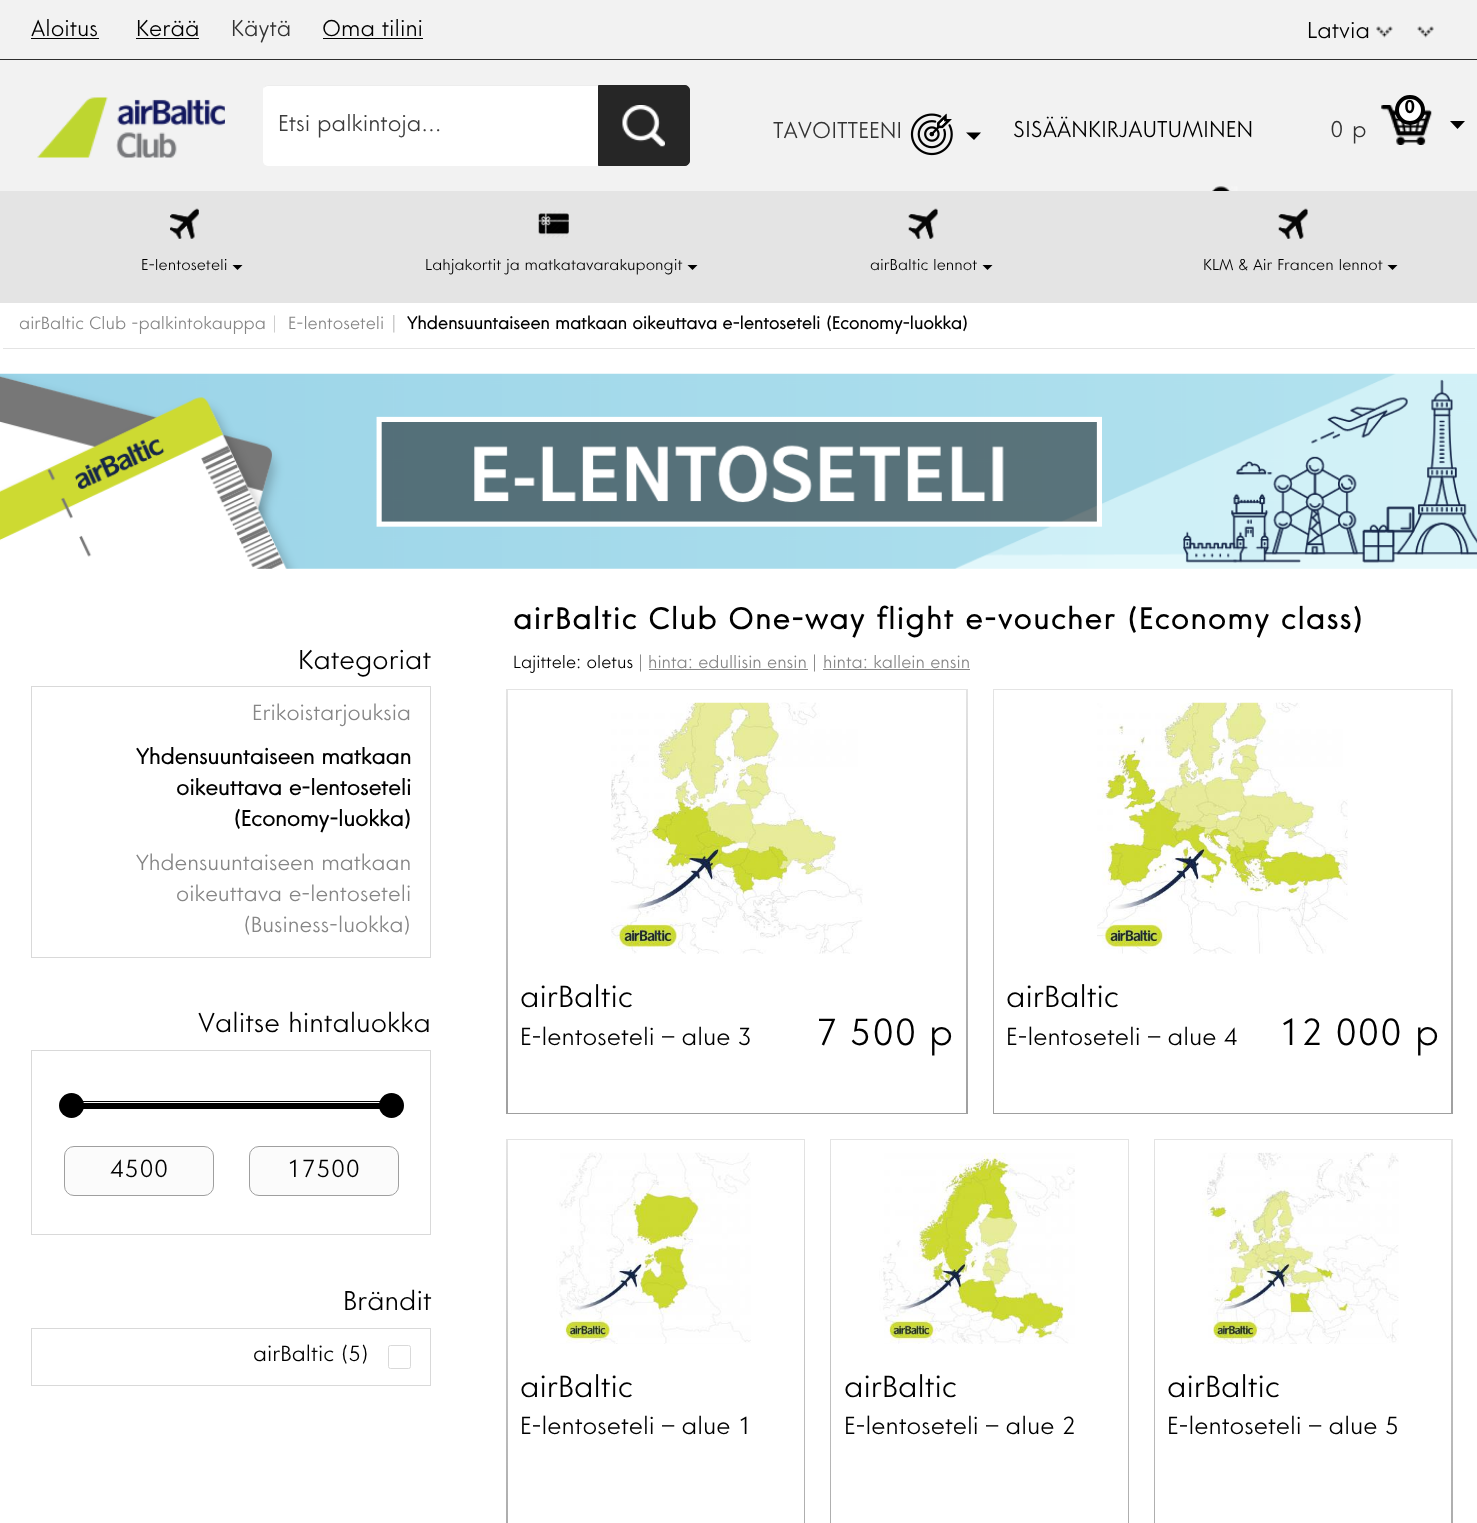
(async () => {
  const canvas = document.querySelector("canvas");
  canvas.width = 1477;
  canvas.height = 1523;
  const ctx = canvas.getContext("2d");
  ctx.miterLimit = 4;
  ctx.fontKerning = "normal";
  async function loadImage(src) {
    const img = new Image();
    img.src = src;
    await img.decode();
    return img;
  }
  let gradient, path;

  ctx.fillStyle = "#f2f2f2";
  ctx.fillRect(0, 0, 1477, 1523);
  for (const [x, y, w, h, color] of [
    [0, 59, 1477, 1, "#2e2e2e"],
    [31, 38, 68, 1, "#000000"],
    [136, 38, 63, 1, "#000000"],
    [323, 38, 100, 1, "#000000"],
  ]) {
    ctx.fillStyle = color;
    ctx.fillRect(x, y, w, h);
  }
  ctx.drawImage(await loadImage("img/1.png"), 1376, 26, 17, 12);
  ctx.drawImage(await loadImage("img/2.png"), 1417, 26, 17, 12);
  ctx.drawImage(await loadImage("img/3.png"), 37, 97, 188, 61);
  ctx.fillStyle = "#ffffff";
  ctx.beginPath();
  ctx.roundRect(263, 85, 335, 81, [5, 0, 0, 5]);
  ctx.fill();
  ctx.fillStyle = "rgba(0, 0, 0, 0.07)";
  path = new Path2D("M268 86H598V85H268C266 85 264 86 264 88C265 87 266 86 268 86Z");
  ctx.fill(path);
  ctx.fillStyle = "#262626";
  ctx.beginPath();
  ctx.roundRect(598.5, 85.5, 91, 80, [0, 4.5, 4.5, 0]);
  ctx.fill();
  ctx.strokeStyle = "#262626";
  ctx.stroke();
  ctx.drawImage(await loadImage("img/4.png"), 622, 105, 43, 42);
  ctx.drawImage(await loadImage("img/5.png"), 910, 113, 43, 43);
  ctx.fillStyle = "#000000";
  path = new Path2D("M966 132.5H981L974 140Z");
  ctx.fill(path);
  ctx.drawImage(await loadImage("img/6.png"), 1212, 186, 26, 5);
  ctx.drawImage(await loadImage("img/7.png"), 1381, 105, 51, 40);
  ctx.fillStyle = "#ffffff";
  ctx.beginPath();
  ctx.arc(1410, 110, 13, 0, Math.PI * 2);
  ctx.fill();
  ctx.strokeStyle = "#000000";
  ctx.lineWidth = 4;
  ctx.stroke();
  ctx.fillStyle = "#000000";
  path = new Path2D("M1450 121H1465L1457.5 129Z");
  ctx.fill(path);
  ctx.fillStyle = "#e4e4e4";
  ctx.fillRect(0, 191, 1477, 112);
  ctx.drawImage(await loadImage("img/8.png"), 170, 208, 29, 31);
  ctx.fillStyle = "#000000";
  path = new Path2D("M232.5 265H242.5L237.5 270Z");
  ctx.fill(path);
  ctx.drawImage(await loadImage("img/9.png"), 538, 210, 31, 28);
  path = new Path2D("M687.5 265H697.5L692.5 270Z");
  ctx.fill(path);
  ctx.drawImage(await loadImage("img/10.png"), 908, 208, 30, 31);
  path = new Path2D("M982.5 265H992.5L987.5 270Z");
  ctx.fill(path);
  ctx.drawImage(await loadImage("img/10.png"), 1278, 208, 30, 31);
  path = new Path2D("M1387.5 265H1397.5L1392.5 270Z");
  ctx.fill(path);
  ctx.fillStyle = "#ffffff";
  ctx.fillRect(0, 303, 1477, 1220);
  ctx.fillStyle = "#e4e4e4";
  ctx.fillRect(3, 348, 1472, 1);
  ctx.drawImage(await loadImage("img/11.png"), 0, 373, 1477, 196);
  ctx.strokeStyle = "#d9d9d9";
  ctx.lineWidth = 1;
  ctx.strokeRect(31.5, 686.5, 399, 271);
  ctx.strokeRect(31.5, 1050.5, 399, 184);
  ctx.fillStyle = "#fafafa";
  ctx.fillRect(83, 1102, 297, 1);
  ctx.strokeStyle = "#000000";
  ctx.strokeRect(70.5, 1101.5, 322, 7);
  ctx.fillStyle = "#000000";
  ctx.fillRect(83, 1103, 297, 5);
  ctx.beginPath();
  ctx.arc(71.5, 1105.5, 12.5, 0, Math.PI * 2);
  ctx.fill();
  ctx.beginPath();
  ctx.arc(391.5, 1105.5, 12.5, 0, Math.PI * 2);
  ctx.fill();
  ctx.fillStyle = "#fbfbfb";
  ctx.beginPath();
  ctx.roundRect(64.5, 1146.5, 149, 49, 9.5);
  ctx.fill();
  ctx.strokeStyle = "#9f9f9f";
  ctx.stroke();
  ctx.beginPath();
  ctx.roundRect(249.5, 1146.5, 149, 49, 9.5);
  ctx.fill();
  ctx.stroke();
  ctx.strokeStyle = "#d9d9d9";
  ctx.strokeRect(31.5, 1328.5, 399, 57);
  ctx.beginPath();
  ctx.roundRect(388.5, 1345.5, 22, 23, 2);
  ctx.stroke();
  ctx.fillStyle = "#868686";
  ctx.fillRect(649, 669, 159, 1);
  ctx.fillRect(823, 669, 147, 1);
  gradient = ctx.createLinearGradient(737, 689, 737, 1114);
  gradient.addColorStop(0, "#e4e4e4");
  gradient.addColorStop(1, "#9f9f9f");
  ctx.fillStyle = gradient;
  ctx.fillRect(506, 689, 462, 425);
  ctx.fillStyle = "#ffffff";
  ctx.fillRect(508, 690, 458, 423);
  ctx.drawImage(await loadImage("img/12.png"), 611, 702, 252, 252);
  gradient = ctx.createLinearGradient(1223, 689, 1223, 1114);
  gradient.addColorStop(0, "#e4e4e4");
  gradient.addColorStop(1, "#9f9f9f");
  ctx.fillStyle = gradient;
  ctx.fillRect(993, 689, 460, 425);
  ctx.fillStyle = "#ffffff";
  ctx.fillRect(994, 690, 457, 423);
  ctx.drawImage(await loadImage("img/13.png"), 1097, 702, 251, 252);
  gradient = ctx.createLinearGradient(656, 1139, 656, 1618);
  gradient.addColorStop(0, "#e4e4e4");
  gradient.addColorStop(1, "#9f9f9f");
  ctx.fillStyle = gradient;
  ctx.fillRect(506, 1139, 299, 384);
  ctx.fillStyle = "#ffffff";
  ctx.fillRect(508, 1140, 296, 383);
  ctx.drawImage(await loadImage("img/14.png"), 556, 1152, 195, 192);
  gradient = ctx.createLinearGradient(979, 1139, 979, 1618);
  gradient.addColorStop(0, "#e4e4e4");
  gradient.addColorStop(1, "#9f9f9f");
  ctx.fillStyle = gradient;
  ctx.fillRect(830, 1139, 299, 384);
  ctx.fillStyle = "#ffffff";
  ctx.fillRect(831, 1140, 297, 383);
  ctx.drawImage(await loadImage("img/15.png"), 879, 1152, 196, 192);
  gradient = ctx.createLinearGradient(1303, 1139, 1303, 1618);
  gradient.addColorStop(0, "#e4e4e4");
  gradient.addColorStop(1, "#9f9f9f");
  ctx.fillStyle = gradient;
  ctx.fillRect(1154, 1139, 299, 384);
  ctx.fillStyle = "#ffffff";
  ctx.fillRect(1155, 1140, 296, 383);
  ctx.drawImage(await loadImage("img/16.png"), 1202, 1152, 197, 192);
  ctx.font = "300 22.75px Avenir";
  ctx.fillStyle = "#000000";
  ctx.fillText("Aloitus", 31, 36);
  ctx.fillText("Kerää", 136, 36);
  ctx.fillStyle = "#333333";
  ctx.fillText("Käytä", 231, 36);
  ctx.fillStyle = "#000000";
  ctx.fillText("Oma tilini", 322, 36);
  ctx.fillText("Latvia", 1307, 38);
  ctx.fillStyle = "#3c3c3c";
  ctx.fillText("Etsi palkintoja...", 278, 131);
  ctx.fillStyle = "#333333";
  ctx.fillText("TAVOITTEENI", 773, 138);
  ctx.fillStyle = "#000000";
  ctx.fillText("SISÄÄNKIRJAUTUMINEN", 1013, 137);
  ctx.font = "bold 18px 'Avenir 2'";
  ctx.fillText("0", 1404, 113);
  ctx.font = "300 22.75px Avenir";
  ctx.fillStyle = "#333333";
  ctx.fillText("0", 1330, 137);
  ctx.fillText("p", 1352, 137);
  ctx.save();
  ctx.beginPath();
  ctx.rect(124, 259, 121, 35);
  ctx.clip();
  ctx.font = "300 15.75px Avenir";
  ctx.fillStyle = "#000000";
  ctx.fillText("E-lentoseteli", 141, 270);
  ctx.restore();
  ctx.save();
  ctx.beginPath();
  ctx.rect(408, 259, 292, 35);
  ctx.clip();
  ctx.font = "300 15.75px Avenir";
  ctx.fillStyle = "#000000";
  ctx.fillText("Lahjakortit ja matkatavarakupongit", 425, 270);
  ctx.restore();
  ctx.save();
  ctx.beginPath();
  ctx.rect(853, 259, 142, 35);
  ctx.clip();
  ctx.font = "300 15.75px Avenir";
  ctx.fillStyle = "#000000";
  ctx.fillText("airBaltic lennot", 870, 270);
  ctx.restore();
  ctx.save();
  ctx.beginPath();
  ctx.rect(1185, 259, 215, 35);
  ctx.clip();
  ctx.font = "300 15.75px Avenir";
  ctx.fillStyle = "#000000";
  ctx.fillText("KLM & Air Francen lennot", 1203, 270);
  ctx.restore();
  ctx.font = "300 17.5px Avenir";
  ctx.fillStyle = "#868686";
  ctx.fillText("airBaltic Club -palkintokauppa", 19, 329);
  ctx.fillStyle = "#cccccc";
  ctx.fillText("|", 272, 329);
  ctx.fillStyle = "#868686";
  ctx.fillText("E-lentoseteli", 288, 329);
  ctx.font = "bold 17.5px Avenir";
  ctx.fillStyle = "#cccccc";
  ctx.fillText("|", 391, 329);
  ctx.fillStyle = "#000000";
  ctx.fillText("Yhdensuuntaiseen matkaan oikeuttava e-lentoseteli (Economy-luokka)", 407, 329);
  ctx.font = "300 27.1px Avenir";
  ctx.fillText("Kategoriat", 298, 669);
  ctx.font = "300 21.9px Avenir";
  ctx.fillStyle = "#868686";
  ctx.fillText("Erikoistarjouksia", 252, 720);
  ctx.font = "bold 21.9px Avenir";
  ctx.fillStyle = "#000000";
  for (const [text, x, y] of [
    ["Yhdensuuntaiseen matkaan", 136, 764],
    ["oikeuttava e-lentoseteli", 176, 795],
    ["(Economy-luokka)", 233, 826],
  ]) {
    ctx.fillText(text, x, y);
  }
  ctx.font = "300 21.9px Avenir";
  ctx.fillStyle = "#868686";
  for (const [text, x, y] of [
    ["Yhdensuuntaiseen matkaan", 136, 870],
    ["oikeuttava e-lentoseteli", 176, 901],
    ["(Business-luokka)", 243, 932],
  ]) {
    ctx.fillText(text, x, y);
  }
  ctx.font = "300 27.1px Avenir";
  ctx.fillStyle = "#000000";
  ctx.fillText("Valitse hintaluokka", 198, 1032);
  ctx.font = "300 24.5px Avenir";
  ctx.fillText("4500", 110, 1177);
  ctx.fillText("17500", 287, 1177);
  ctx.font = "300 27.1px Avenir";
  ctx.fillText("Brändit", 343, 1310);
  ctx.font = "300 21.9px Avenir";
  ctx.fillText("airBaltic (5)", 253, 1361);
  ctx.letterSpacing = "1.62px";
  ctx.font = "bold 29.75px Avenir";
  ctx.fillText("airBaltic Club One-way flight e-voucher (Economy class)", 513, 629);
  ctx.letterSpacing = "0px";
  ctx.font = "300 17.5px Avenir";
  ctx.fillText("Lajittele: oletus", 513, 668);
  ctx.fillStyle = "#868686";
  for (const [text, x, y] of [
    ["|", 638, 668],
    ["hinta: edullisin ensin", 648, 668],
    ["|", 812, 668],
    ["hinta: kallein ensin", 823, 668],
  ]) {
    ctx.fillText(text, x, y);
  }
  ctx.font = "300 30.5px Avenir";
  ctx.fillStyle = "#000000";
  ctx.fillText("airBaltic", 520, 1007);
  ctx.font = "300 24.5px Avenir";
  ctx.fillText("E-lentoseteli – alue 3", 520, 1045);
  ctx.font = "300 37.5px Avenir";
  ctx.fillText("7 500", 816, 1045);
  ctx.fillText("p", 929, 1045);
  ctx.font = "300 30.5px Avenir";
  ctx.fillText("airBaltic", 1006, 1007);
  ctx.font = "300 24.5px Avenir";
  ctx.fillText("E-lentoseteli – alue 4", 1006, 1045);
  ctx.font = "300 37.5px Avenir";
  ctx.fillText("12 000", 1279, 1045);
  ctx.fillText("p", 1415, 1045);
  ctx.font = "300 30.5px Avenir";
  ctx.fillText("airBaltic", 520, 1397);
  ctx.font = "300 24.5px Avenir";
  ctx.fillText("E-lentoseteli – alue 1", 520, 1434);
  ctx.font = "300 30.5px Avenir";
  ctx.fillText("airBaltic", 844, 1397);
  ctx.font = "300 24.5px Avenir";
  ctx.fillText("E-lentoseteli – alue 2", 844, 1434);
  ctx.font = "300 30.5px Avenir";
  ctx.fillText("airBaltic", 1167, 1397);
  ctx.font = "300 24.5px Avenir";
  ctx.fillText("E-lentoseteli – alue 5", 1167, 1434);
})();
